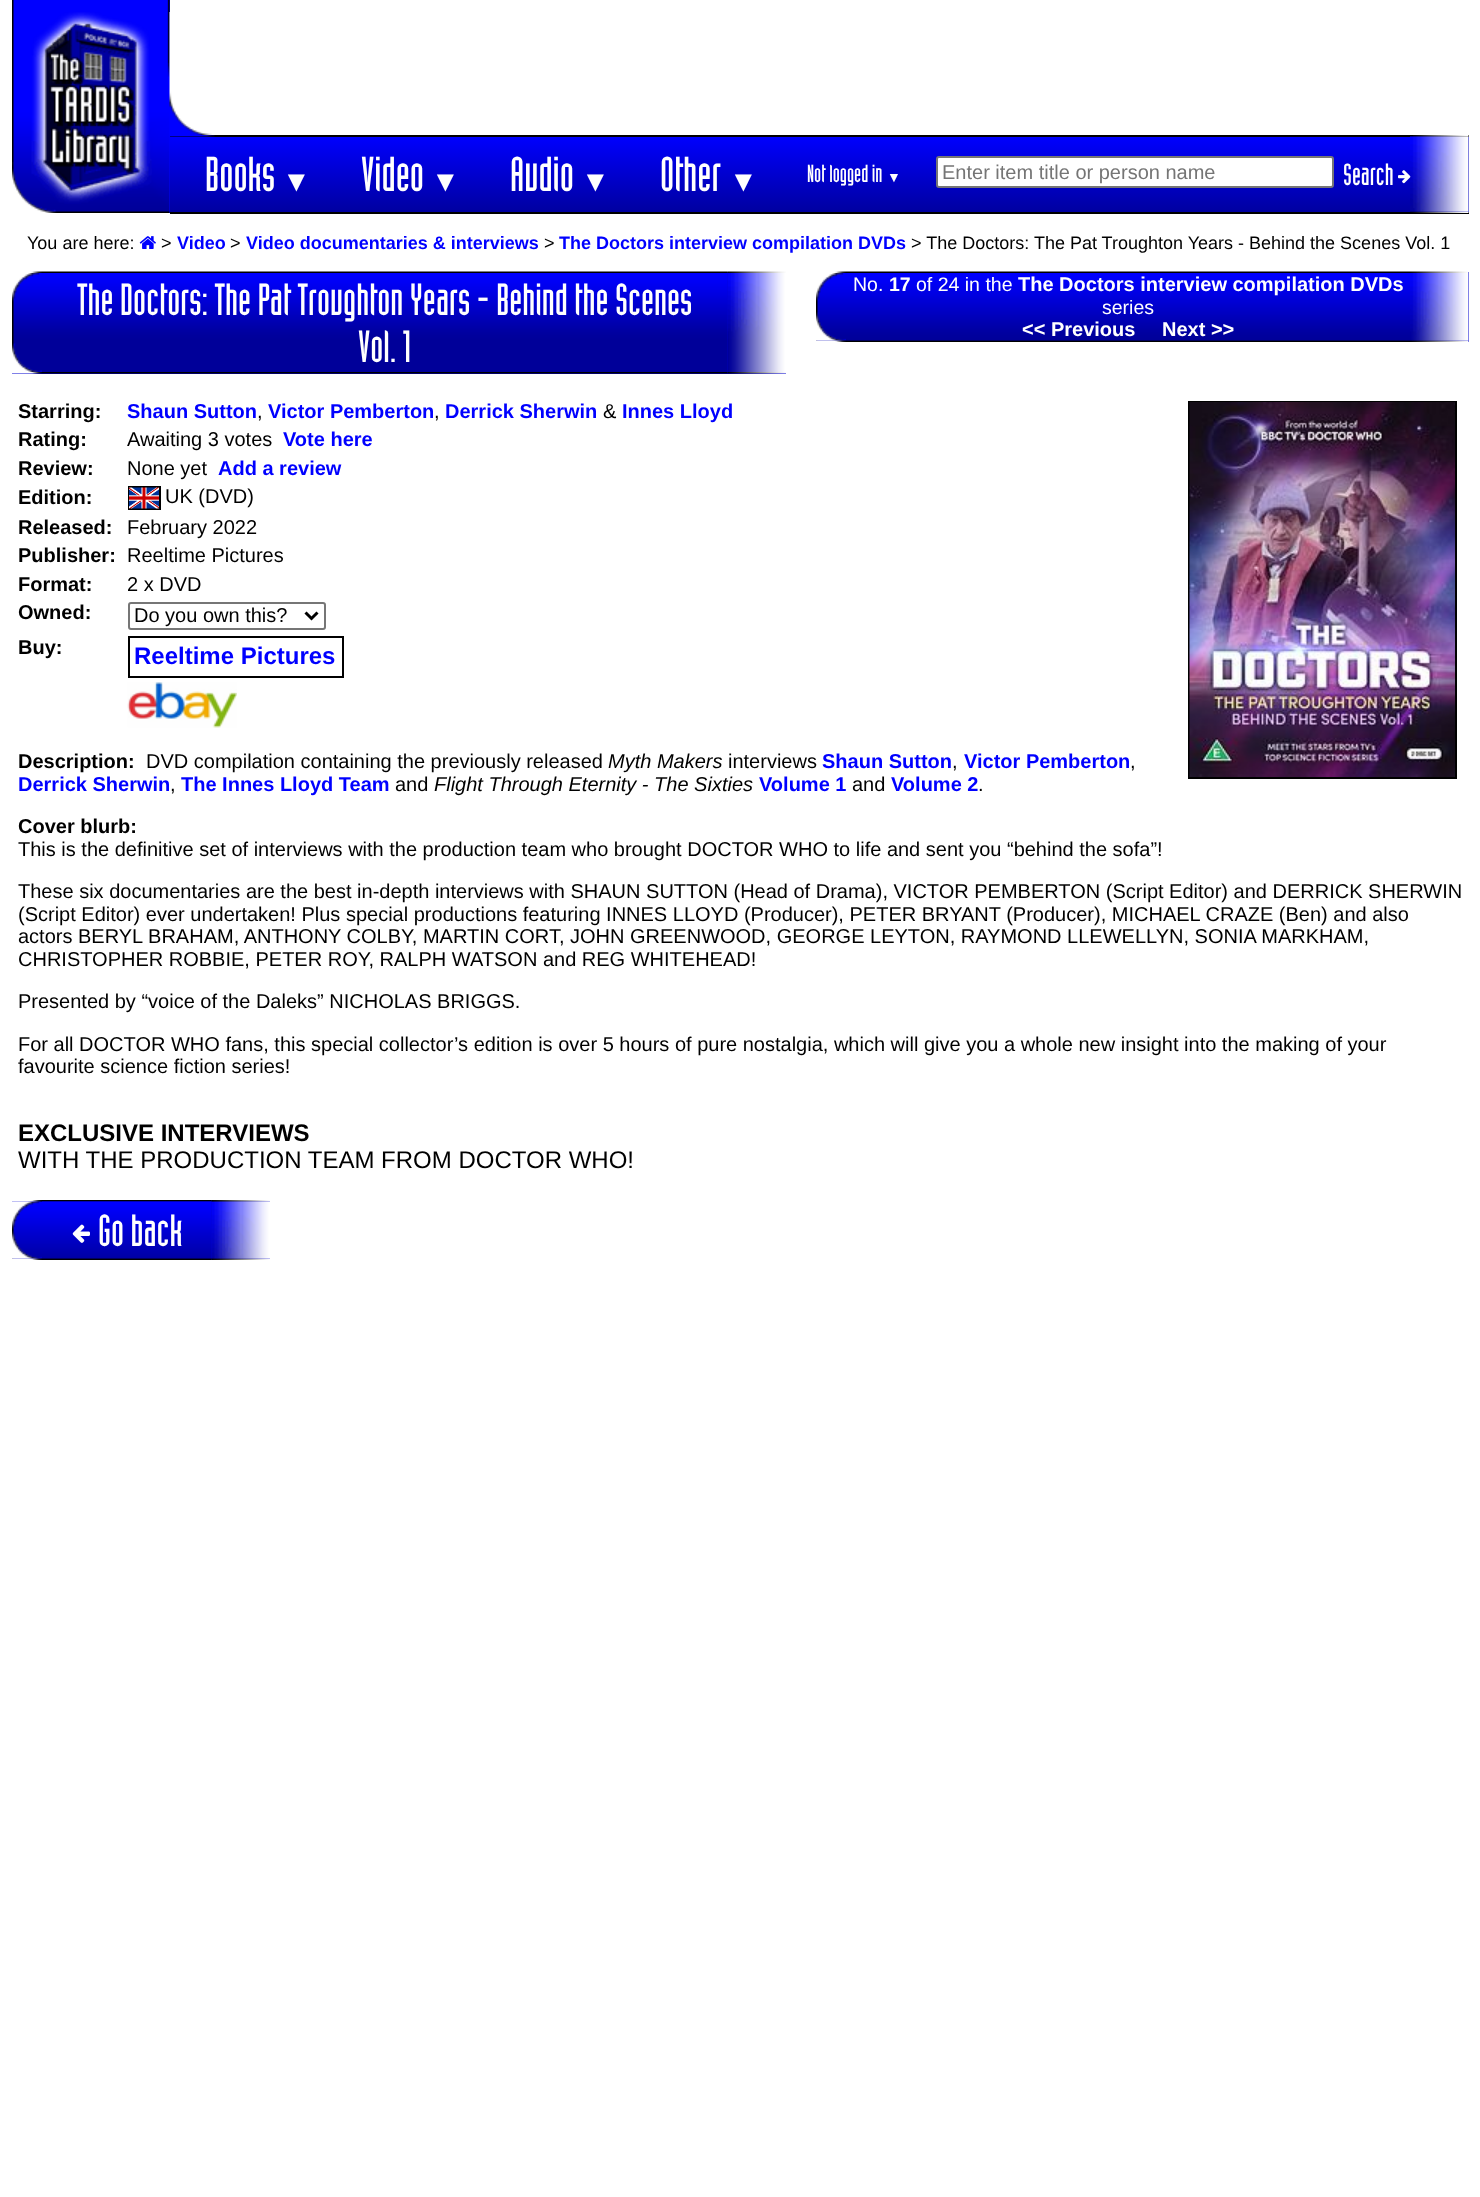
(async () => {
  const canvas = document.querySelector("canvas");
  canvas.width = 1480;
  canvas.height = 2197;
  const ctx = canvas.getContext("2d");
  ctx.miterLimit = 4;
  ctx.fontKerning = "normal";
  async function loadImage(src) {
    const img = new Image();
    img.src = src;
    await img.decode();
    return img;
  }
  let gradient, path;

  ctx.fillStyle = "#ffffff";
  ctx.fillRect(0, 0, 1480, 2197);
  ctx.fillStyle = "#0000ff";
  ctx.fillRect(169, 0, 1, 213);
  ctx.drawImage(await loadImage("img/1.png"), 12, 0, 158, 213);
  ctx.drawImage(await loadImage("img/2.png"), 31, 12, 121, 192);
  ctx.drawImage(await loadImage("img/3.png"), 169, 12, 43, 123);
  ctx.fillStyle = "#000000";
  ctx.fillRect(170, 135, 1299, 2);
  ctx.drawImage(await loadImage("img/4.png"), 1413, 135, 56, 2);
  ctx.drawImage(await loadImage("img/5.png"), 170, 135, 45, 2);
  gradient = ctx.createLinearGradient(790, 136, 790, 212);
  gradient.addColorStop(0, "#0000ff");
  gradient.addColorStop(1, "#0000a0");
  ctx.fillStyle = gradient;
  ctx.fillRect(170, 137, 1240, 75);
  ctx.fillStyle = "#ffffff";
  ctx.beginPath();
  ctx.roundRect(937, 157, 396, 30, 2);
  ctx.fill();
  ctx.strokeStyle = "#767676";
  ctx.lineWidth = 2;
  ctx.stroke();
  ctx.fillStyle = "#0000c0";
  ctx.fillRect(1410, 137, 59, 75);
  ctx.fillStyle = "#000000";
  ctx.fillRect(170, 212, 1299, 2);
  ctx.drawImage(await loadImage("img/8.png"), 1410, 211, 59, 2);
  ctx.drawImage(await loadImage("img/7.png"), 1410, 136, 59, 76);
  ctx.drawImage(await loadImage("img/6.png"), 1398, 170, 13, 14);
  ctx.drawImage(await loadImage("img/9.png"), 139, 236, 17, 13);
  ctx.fillStyle = "#0000d0";
  ctx.fillRect(12, 272, 774, 102);
  ctx.drawImage(await loadImage("img/10.png"), 12, 271, 30, 2);
  ctx.drawImage(await loadImage("img/11.png"), 42, 271, 686, 2);
  ctx.drawImage(await loadImage("img/12.png"), 727, 271, 59, 2);
  ctx.drawImage(await loadImage("img/13.png"), 12, 273, 30, 98);
  ctx.drawImage(await loadImage("img/14.png"), 12, 343, 30, 29);
  ctx.drawImage(await loadImage("img/15.png"), 42, 273, 686, 99);
  ctx.drawImage(await loadImage("img/16.png"), 727, 273, 59, 99);
  ctx.drawImage(await loadImage("img/17.png"), 12, 372, 30, 2);
  ctx.drawImage(await loadImage("img/18.png"), 42, 372, 686, 2);
  ctx.drawImage(await loadImage("img/19.png"), 727, 372, 59, 2);
  ctx.fillRect(816, 272, 653, 70);
  ctx.drawImage(await loadImage("img/10.png"), 816, 271, 30, 2);
  ctx.drawImage(await loadImage("img/20.png"), 846, 271, 564, 2);
  ctx.drawImage(await loadImage("img/21.png"), 1410, 271, 59, 2);
  ctx.drawImage(await loadImage("img/22.png"), 816, 273, 30, 68);
  ctx.drawImage(await loadImage("img/23.png"), 816, 312, 30, 29);
  ctx.drawImage(await loadImage("img/24.png"), 846, 273, 564, 68);
  ctx.drawImage(await loadImage("img/25.png"), 1410, 273, 59, 68);
  ctx.drawImage(await loadImage("img/26.png"), 816, 340, 30, 2);
  ctx.drawImage(await loadImage("img/27.png"), 846, 340, 564, 2);
  ctx.drawImage(await loadImage("img/28.png"), 1410, 340, 59, 2);
  ctx.strokeStyle = "#000000";
  ctx.strokeRect(129, 487, 31, 22);
  ctx.drawImage(await loadImage("img/29.png"), 129, 487, 30, 22);
  ctx.beginPath();
  ctx.roundRect(129, 603, 196, 26, 2);
  ctx.strokeStyle = "#767676";
  ctx.stroke();
  path = new Path2D("M305.5 612.5L311.5 618.5L317.5 612.5");
  ctx.strokeStyle = "#000000";
  ctx.lineWidth = 3;
  ctx.stroke(path);
  ctx.lineWidth = 2;
  ctx.strokeRect(129, 637, 214, 40);
  ctx.drawImage(await loadImage("img/30.png"), 127, 682, 110, 46);
  ctx.strokeRect(1189, 402, 267, 376);
  ctx.drawImage(await loadImage("img/31.png"), 1189, 402, 266, 375);
  ctx.fillRect(12, 1200, 258, 60);
  ctx.drawImage(await loadImage("img/35.png"), 12, 1201, 30, 58);
  ctx.drawImage(await loadImage("img/32.png"), 12, 1200, 30, 2);
  ctx.drawImage(await loadImage("img/33.png"), 42, 1200, 170, 2);
  ctx.drawImage(await loadImage("img/37.png"), 42, 1201, 170, 58);
  ctx.drawImage(await loadImage("img/39.png"), 211, 1201, 59, 58);
  ctx.drawImage(await loadImage("img/34.png"), 211, 1200, 59, 2);
  ctx.drawImage(await loadImage("img/36.png"), 12, 1230, 30, 29);
  ctx.drawImage(await loadImage("img/38.png"), 72, 1224, 18, 19);
  ctx.drawImage(await loadImage("img/40.png"), 12, 1258, 30, 2);
  ctx.drawImage(await loadImage("img/41.png"), 42, 1258, 170, 2);
  ctx.drawImage(await loadImage("img/42.png"), 211, 1258, 59, 2);
  ctx.font = "48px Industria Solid";
  ctx.fillStyle = "#ffffff";
  ctx.fillText("Books", 205, 191);
  ctx.font = "29px Liberation Sans";
  ctx.fillText("▼", 282, 191);
  ctx.font = "48px Industria Solid";
  ctx.fillText("Video", 361, 191);
  ctx.font = "29px Liberation Sans";
  ctx.fillText("▼", 431, 191);
  ctx.font = "48px Industria Solid";
  ctx.fillText("Audio", 510, 191);
  ctx.font = "29px Liberation Sans";
  ctx.fillText("▼", 581, 191);
  ctx.font = "48px Industria Solid";
  ctx.fillText("Other", 660, 191);
  ctx.font = "29px Liberation Sans";
  ctx.fillText("▼", 729, 191);
  ctx.font = "24px Industria Solid";
  ctx.fillText("Not logged in", 807, 182);
  ctx.font = "14px Liberation Sans";
  ctx.fillText("▼", 887, 182);
  ctx.font = "20px Liberation Sans";
  ctx.fillStyle = "#757575";
  ctx.fillText("Enter item title or person name", 942, 179);
  ctx.font = "30px Industria Solid";
  ctx.fillStyle = "#ffffff";
  ctx.fillText("Search", 1343, 185);
  ctx.font = "18px Liberation Sans";
  ctx.fillStyle = "#000000";
  ctx.fillText("You are here:", 27, 249);
  ctx.fillText(">", 161, 249);
  ctx.font = "bold 18px Liberation Sans";
  ctx.fillStyle = "#0000ff";
  ctx.fillText("Video", 177, 249);
  ctx.font = "18px Liberation Sans";
  ctx.fillStyle = "#000000";
  ctx.fillText(">", 230, 249);
  ctx.font = "bold 18px Liberation Sans";
  ctx.fillStyle = "#0000ff";
  ctx.fillText("Video documentaries & interviews", 246, 249);
  ctx.font = "18px Liberation Sans";
  ctx.fillStyle = "#000000";
  ctx.fillText(">", 544, 249);
  ctx.font = "bold 18px Liberation Sans";
  ctx.fillStyle = "#0000ff";
  ctx.fillText("The Doctors interview compilation DVDs", 559, 249);
  ctx.font = "18px Liberation Sans";
  ctx.fillStyle = "#000000";
  ctx.fillText("> The Doctors: The Pat Troughton Years - Behind the Scenes Vol. 1", 911, 249);
  ctx.font = "44px Industria Solid";
  ctx.fillStyle = "#ffffff";
  ctx.fillText("The Doctors: The Pat Troughton Years - Behind the Scenes", 77, 315);
  ctx.fillText("Vol. 1", 358, 362);
  ctx.font = "19.5px Liberation Sans";
  ctx.fillText("No.", 853, 291);
  ctx.font = "bold 19.5px Liberation Sans";
  ctx.fillText("17", 889, 291);
  ctx.font = "19.5px Liberation Sans";
  ctx.fillText("of 24 in the", 916, 291);
  ctx.font = "bold 20px Liberation Sans";
  ctx.fillText("The Doctors interview compilation DVDs", 1018, 291);
  ctx.font = "19.5px Liberation Sans";
  ctx.fillText("series", 1102, 314);
  ctx.font = "bold 20px Liberation Sans";
  ctx.fillText("<< Previous", 1022, 336);
  ctx.fillText("Next >>", 1162, 336);
  ctx.fillStyle = "#000000";
  ctx.fillText("Starring:", 18, 418);
  ctx.fillStyle = "#0000ff";
  ctx.fillText("Shaun Sutton", 127, 418);
  ctx.font = "20px Liberation Sans";
  ctx.fillStyle = "#000000";
  ctx.fillText(",", 257, 418);
  ctx.font = "bold 20px Liberation Sans";
  ctx.fillStyle = "#0000ff";
  ctx.fillText("Victor Pemberton", 268, 418);
  ctx.font = "20px Liberation Sans";
  ctx.fillStyle = "#000000";
  ctx.fillText(",", 434, 418);
  ctx.font = "bold 20px Liberation Sans";
  ctx.fillStyle = "#0000ff";
  ctx.fillText("Derrick Sherwin", 445, 418);
  ctx.font = "20px Liberation Sans";
  ctx.fillStyle = "#000000";
  ctx.fillText("&", 603, 418);
  ctx.font = "bold 20px Liberation Sans";
  ctx.fillStyle = "#0000ff";
  ctx.fillText("Innes Lloyd", 622, 418);
  ctx.fillStyle = "#000000";
  ctx.fillText("Rating:", 18, 446);
  ctx.font = "20px Liberation Sans";
  ctx.fillText("Awaiting 3 votes", 127, 446);
  ctx.font = "bold 20px Liberation Sans";
  ctx.fillStyle = "#0000ff";
  ctx.fillText("Vote here", 283, 446);
  ctx.fillStyle = "#000000";
  ctx.fillText("Review:", 18, 475);
  ctx.font = "20px Liberation Sans";
  ctx.fillText("None yet", 127, 475);
  ctx.font = "bold 20px Liberation Sans";
  ctx.fillStyle = "#0000ff";
  ctx.fillText("Add a review", 218, 475);
  ctx.fillStyle = "#000000";
  ctx.fillText("Edition:", 18, 504);
  ctx.font = "20px Liberation Sans";
  ctx.fillText("UK (DVD)", 165, 503);
  ctx.font = "bold 20px Liberation Sans";
  ctx.fillText("Released:", 18, 534);
  ctx.font = "20px Liberation Sans";
  ctx.fillText("February 2022", 127, 534);
  ctx.font = "bold 20px Liberation Sans";
  ctx.fillText("Publisher:", 18, 562);
  ctx.font = "20px Liberation Sans";
  ctx.fillText("Reeltime Pictures", 127, 562);
  ctx.font = "bold 20px Liberation Sans";
  ctx.fillText("Format:", 18, 591);
  ctx.font = "20px Liberation Sans";
  ctx.fillText("2 x DVD", 127, 591);
  ctx.font = "bold 20px Liberation Sans";
  ctx.fillText("Owned:", 18, 619);
  ctx.font = "20px Liberation Sans";
  ctx.fillText("Do you own this?", 134, 622);
  ctx.font = "bold 20px Liberation Sans";
  ctx.fillText("Buy:", 18, 654);
  ctx.font = "bold 24px Liberation Sans";
  ctx.fillStyle = "#0000ff";
  ctx.fillText("Reeltime Pictures", 134, 664);
  ctx.font = "bold 20px Liberation Sans";
  ctx.fillStyle = "#000000";
  ctx.fillText("Description:", 18, 768);
  ctx.font = "20px Liberation Sans";
  ctx.fillText("DVD compilation containing the previously released", 146, 768);
  ctx.font = "italic 20px Liberation Sans";
  ctx.fillText("Myth Makers", 608, 768);
  ctx.font = "20px Liberation Sans";
  ctx.fillText("interviews", 728, 768);
  ctx.font = "bold 20px Liberation Sans";
  ctx.fillStyle = "#0000ff";
  ctx.fillText("Shaun Sutton", 822, 768);
  ctx.font = "20px Liberation Sans";
  ctx.fillStyle = "#000000";
  ctx.fillText(",", 952, 768);
  ctx.font = "bold 20px Liberation Sans";
  ctx.fillStyle = "#0000ff";
  ctx.fillText("Victor Pemberton", 964, 768);
  ctx.font = "20px Liberation Sans";
  ctx.fillStyle = "#000000";
  ctx.fillText(",", 1130, 768);
  ctx.font = "bold 20px Liberation Sans";
  ctx.fillStyle = "#0000ff";
  ctx.fillText("Derrick Sherwin", 18, 791);
  ctx.font = "20px Liberation Sans";
  ctx.fillStyle = "#000000";
  ctx.fillText(",", 170, 791);
  ctx.font = "bold 20px Liberation Sans";
  ctx.fillStyle = "#0000ff";
  ctx.fillText("The Innes Lloyd Team", 181, 791);
  ctx.font = "20px Liberation Sans";
  ctx.fillStyle = "#000000";
  ctx.fillText("and", 395, 791);
  ctx.font = "italic 20px Liberation Sans";
  ctx.fillText("Flight Through Eternity - The Sixties", 434, 791);
  ctx.font = "bold 20px Liberation Sans";
  ctx.fillStyle = "#0000ff";
  ctx.fillText("Volume 1", 759, 791);
  ctx.font = "20px Liberation Sans";
  ctx.fillStyle = "#000000";
  ctx.fillText("and", 852, 791);
  ctx.font = "bold 20px Liberation Sans";
  ctx.fillStyle = "#0000ff";
  ctx.fillText("Volume 2", 891, 791);
  ctx.font = "20px Liberation Sans";
  ctx.fillStyle = "#000000";
  ctx.fillText(".", 978, 791);
  ctx.font = "bold 20px Liberation Sans";
  ctx.fillText("Cover blurb:", 18, 833);
  ctx.font = "20px Liberation Sans";
  for (const [text, x, y] of [
    ["This is the definitive set of interviews with the production team who brought DOCTOR WHO to life and sent you “behind the sofa”!", 18, 856],
    ["These six documentaries are the best in-depth interviews with SHAUN SUTTON (Head of Drama), VICTOR PEMBERTON (Script Editor) and DERRICK SHERWIN", 18, 898],
    ["(Script Editor) ever undertaken! Plus special productions featuring INNES LLOYD (Producer), PETER BRYANT (Producer), MICHAEL CRAZE (Ben) and also", 18, 921],
    ["actors BERYL BRAHAM, ANTHONY COLBY, MARTIN CORT, JOHN GREENWOOD, GEORGE LEYTON, RAYMOND LLEWELLYN, SONIA MARKHAM,", 18, 943],
    ["CHRISTOPHER ROBBIE, PETER ROY, RALPH WATSON and REG WHITEHEAD!", 18, 966],
    ["Presented by “voice of the Daleks” NICHOLAS BRIGGS.", 18, 1008],
    ["For all DOCTOR WHO fans, this special collector’s edition is over 5 hours of pure nostalgia, which will give you a whole new insight into the making of your", 18, 1051],
    ["favourite science fiction series!", 18, 1073],
  ]) {
    ctx.fillText(text, x, y);
  }
  ctx.font = "bold 24px Liberation Sans";
  ctx.fillText("EXCLUSIVE INTERVIEWS", 18, 1141);
  ctx.font = "24px Liberation Sans";
  ctx.fillText("WITH THE PRODUCTION TEAM FROM DOCTOR WHO!", 18, 1168);
  ctx.font = "44px Industria Solid";
  ctx.fillStyle = "#ffffff";
  ctx.fillText("Go back", 98, 1246);
})();
